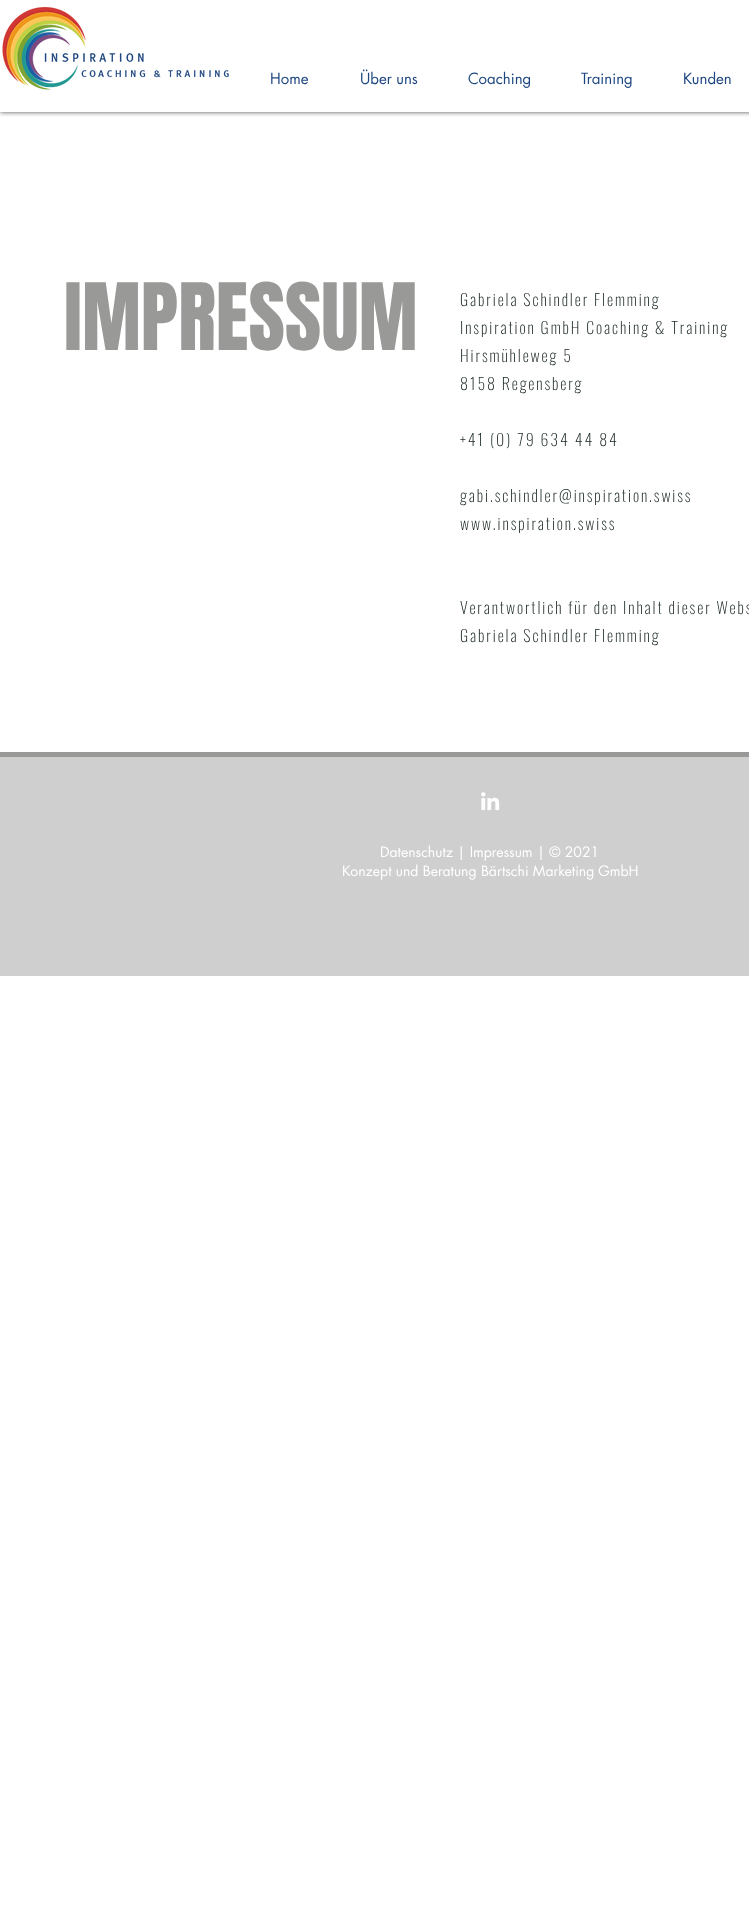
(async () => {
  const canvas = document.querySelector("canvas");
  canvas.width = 749;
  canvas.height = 1927;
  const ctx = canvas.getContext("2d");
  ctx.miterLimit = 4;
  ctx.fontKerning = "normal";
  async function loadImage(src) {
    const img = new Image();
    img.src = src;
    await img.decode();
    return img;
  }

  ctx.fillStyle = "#ffffff";
  ctx.fillRect(0, 0, 749, 1927);
  ctx.save();
  ctx.beginPath();
  ctx.rect(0, 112, 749, 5);
  ctx.clip();
  ctx.fillStyle = "rgba(0, 0, 0, 0.7)";
  ctx.filter = "blur(2.5px)";
  ctx.beginPath();
  ctx.rect(0, 0, 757, 112);
  ctx.fill();
  ctx.filter = "none";
  ctx.restore();
  ctx.drawImage(await loadImage("img/1.png"), 2, 6, 227, 84);
  ctx.fillStyle = "#cfcfcf";
  ctx.fillRect(0, 757, 749, 219);
  ctx.fillStyle = "#999997";
  ctx.fillRect(0, 752, 749, 5);
  ctx.drawImage(await loadImage("img/2.png"), 481, 792, 19, 19);
  ctx.font = "15px futura";
  ctx.fillStyle = "#1d4680";
  for (const [text, x, y] of [
    ["Home", 270, 84],
    ["Über uns", 360, 84],
    ["Coaching", 468, 84],
    ["Training", 581, 84],
    ["Kunden", 683, 84],
  ]) {
    ctx.fillText(text, x, y);
  }
  ctx.font = "79px Anton";
  ctx.fillStyle = "#999997";
  ctx.fillText("IMPRESSUM", 64, 350);
  ctx.letterSpacing = "1.9px";
  ctx.font = "200 16px Oswald";
  ctx.fillStyle = "#172521";
  for (const [text, x, y] of [
    ["Gabriela Schindler Flemming", 460, 306],
    ["Inspiration GmbH Coaching & Training", 460, 334],
    ["Hirsmühleweg 5", 460, 362],
    ["8158 Regensberg", 460, 390],
    ["+41 (0) 79 634 44 84", 460, 446],
    ["gabi.schindler@inspiration.swiss", 460, 502],
    ["www.inspiration.swiss", 460, 530],
    ["Verantwortlich für den Inhalt dieser Webs", 460, 614],
    ["Gabriela Schindler Flemming", 460, 642],
  ]) {
    ctx.fillText(text, x, y);
  }
  ctx.letterSpacing = "0px";
  ctx.font = "14px futura";
  ctx.fillStyle = "#ffffff";
  ctx.fillText("Datenschutz | Impressum | © 2021", 380, 857);
  ctx.fillText("Konzept und Beratung Bärtschi Marketing GmbH", 342, 876);
})();
